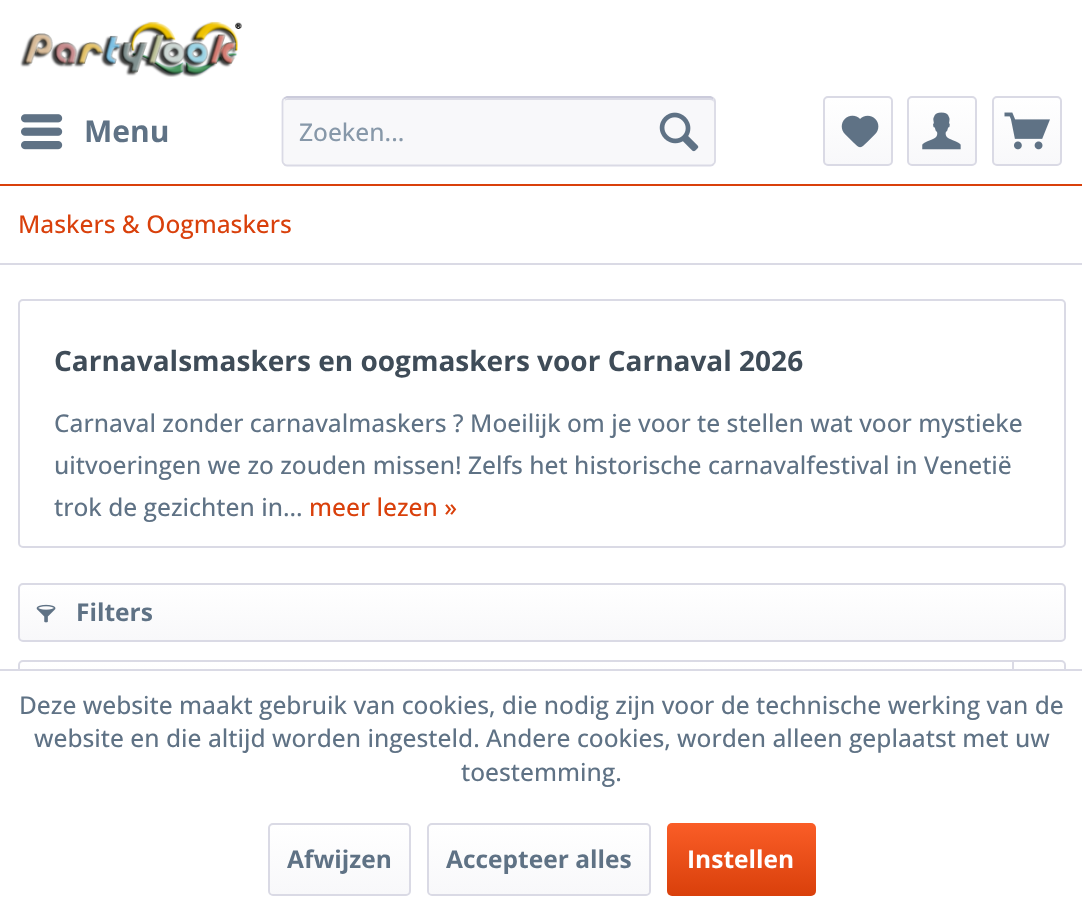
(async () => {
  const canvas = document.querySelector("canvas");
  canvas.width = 1082;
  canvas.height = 912;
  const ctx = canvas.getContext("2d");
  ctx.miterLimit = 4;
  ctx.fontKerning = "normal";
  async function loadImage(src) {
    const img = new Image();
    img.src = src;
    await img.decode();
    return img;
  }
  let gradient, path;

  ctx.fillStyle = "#ffffff";
  ctx.fillRect(0, 0, 1082, 912);
  ctx.fillStyle = "#d9400b";
  ctx.fillRect(0, 184, 1082, 2);
  ctx.drawImage(await loadImage("img/1.png"), 20, 21, 222, 56);
  ctx.drawImage(await loadImage("img/2.png"), 21, 114, 42, 36);
  ctx.fillStyle = "#f8f8fa";
  ctx.beginPath();
  ctx.roundRect(282, 96, 434, 70, 5);
  ctx.fill();
  ctx.fillStyle = "#dadae5";
  path = new Path2D("M287 100H710C712 100 714 101 714 103C714 100 713 98 710 98H288C287 98 285 99 285 100L284 103C284 101 285 100 287 100Z");
  ctx.fill(path);
  path = new Path2D("M284 98.5L287 97H710.5L713.5 98.5");
  ctx.strokeStyle = "#cbcbdb";
  ctx.lineWidth = 1.8;
  ctx.stroke(path);
  path = new Path2D("M713.5 98.5C714.5 99 715 100.5 715 101.5V161C715 162 714.5 163.5 713.5 164C713 165 711.5 165.5 710.5 165.5H287C286 165.5 284.5 165 284 164C283 163.5 282.5 162 282.5 161V101.5C282.5 100.5 283 99 284 98.5");
  ctx.strokeStyle = "#dadae5";
  ctx.stroke(path);
  ctx.drawImage(await loadImage("img/3.png"), 659, 112, 40, 40);
  gradient = ctx.createLinearGradient(858, 98, 858, 165);
  gradient.addColorStop(0, "#ffffff");
  gradient.addColorStop(1, "#f8f8fa");
  ctx.fillStyle = gradient;
  ctx.beginPath();
  ctx.roundRect(824, 98, 67, 67, 4);
  ctx.fill();
  ctx.beginPath();
  ctx.roundRect(824, 97, 68, 68, 4);
  ctx.lineWidth = 2;
  ctx.stroke();
  ctx.drawImage(await loadImage("img/4.png"), 841, 115, 38, 33);
  gradient = ctx.createLinearGradient(942, 98, 942, 165);
  gradient.addColorStop(0, "#ffffff");
  gradient.addColorStop(1, "#f8f8fa");
  ctx.fillStyle = gradient;
  ctx.beginPath();
  ctx.roundRect(908, 98, 67, 67, 4);
  ctx.fill();
  ctx.beginPath();
  ctx.roundRect(908, 97, 68, 68, 4);
  ctx.stroke();
  ctx.drawImage(await loadImage("img/5.png"), 922, 112, 39, 38);
  gradient = ctx.createLinearGradient(1027, 98, 1027, 165);
  gradient.addColorStop(0, "#ffffff");
  gradient.addColorStop(1, "#f8f8fa");
  ctx.fillStyle = gradient;
  ctx.beginPath();
  ctx.roundRect(994, 98, 67, 67, 4);
  ctx.fill();
  ctx.beginPath();
  ctx.roundRect(993, 97, 68, 68, 4);
  ctx.stroke();
  ctx.drawImage(await loadImage("img/6.png"), 1004, 112, 46, 38);
  ctx.fillStyle = "#dadae5";
  ctx.fillRect(0, 263, 1082, 2);
  ctx.beginPath();
  ctx.roundRect(19, 300, 1046, 247, 4);
  ctx.stroke();
  gradient = ctx.createLinearGradient(542, 584, 542, 641);
  gradient.addColorStop(0, "#ffffff");
  gradient.addColorStop(1, "#f8f8fa");
  ctx.fillStyle = gradient;
  ctx.beginPath();
  ctx.roundRect(19, 585, 1045, 56, 4);
  ctx.fill();
  ctx.beginPath();
  ctx.roundRect(19, 584, 1046, 57, 4);
  ctx.stroke();
  ctx.drawImage(await loadImage("img/7.png"), 36, 604, 20, 19);
  gradient = ctx.createLinearGradient(542, 661, 542, 718);
  gradient.addColorStop(0, "#ffffff");
  gradient.addColorStop(1, "#f8f8fa");
  ctx.fillStyle = gradient;
  ctx.beginPath();
  ctx.roundRect(19, 662, 1045, 56, 4);
  ctx.fill();
  ctx.beginPath();
  ctx.roundRect(19, 661, 1046, 57, 4);
  ctx.stroke();
  for (const [x, y, w, h, color] of [
    [1012, 662, 2, 7, "#dadae5"],
    [18, 671, 1048, 48, "#ffffff"],
    [0, 669, 1082, 2, "#dadae5"],
  ]) {
    ctx.fillStyle = color;
    ctx.fillRect(x, y, w, h);
  }
  gradient = ctx.createLinearGradient(340, 824, 340, 894);
  gradient.addColorStop(0, "#ffffff");
  gradient.addColorStop(1, "#f8f8fa");
  ctx.fillStyle = gradient;
  ctx.beginPath();
  ctx.roundRect(270, 824, 140, 70, 4);
  ctx.fill();
  ctx.beginPath();
  ctx.roundRect(269, 824, 141, 71, 4);
  ctx.stroke();
  gradient = ctx.createLinearGradient(539, 824, 539, 894);
  gradient.addColorStop(0, "#ffffff");
  gradient.addColorStop(1, "#f8f8fa");
  ctx.fillStyle = gradient;
  ctx.beginPath();
  ctx.roundRect(429, 824, 220, 70, 4);
  ctx.fill();
  ctx.beginPath();
  ctx.roundRect(428, 824, 222, 71, 4);
  ctx.stroke();
  gradient = ctx.createLinearGradient(741, 823, 741, 896);
  gradient.addColorStop(0, "#fa5d27");
  gradient.addColorStop(1, "#d9400b");
  ctx.fillStyle = gradient;
  ctx.beginPath();
  ctx.roundRect(667, 823, 149, 73, 5);
  ctx.fill();
  ctx.font = "bold 30px Open Sans";
  ctx.fillStyle = "#5f7285";
  ctx.fillText("Menu", 84, 142);
  ctx.font = "500 24.5px Open Sans";
  ctx.fillStyle = "#8798a9";
  ctx.fillText("Zoeken...", 299, 141);
  ctx.fillStyle = "#d9400b";
  ctx.fillText("Maskers & Oogmaskers", 18, 233);
  ctx.font = "bold 28px Open Sans";
  ctx.fillStyle = "#3f4c58";
  ctx.fillText("Carnavalsmaskers en oogmaskers voor Carnaval 2026", 54, 371);
  ctx.font = "500 24.5px Open Sans";
  ctx.fillStyle = "#5f7285";
  for (const [text, x, y] of [
    ["Carnaval zonder carnavalmaskers ? Moeilijk om je voor te stellen wat voor mystieke", 54, 432],
    ["uitvoeringen we zo zouden missen! Zelfs het historische carnavalfestival in Venetië", 54, 474],
    ["trok de gezichten in...", 54, 516],
  ]) {
    ctx.fillText(text, x, y);
  }
  ctx.fillStyle = "#d9400b";
  ctx.fillText("meer lezen »", 309, 516);
  ctx.font = "bold 24.5px Open Sans";
  ctx.fillStyle = "#5f7285";
  ctx.fillText("Filters", 76, 621);
  ctx.font = "500 24.5px Open Sans";
  for (const [text, x, y] of [
    ["Deze website maakt gebruik van cookies, die nodig zijn voor de technische werking van de", 19, 714],
    ["website en die altijd worden ingesteld. Andere cookies, worden alleen geplaatst met uw", 34, 747],
    ["toestemming.", 461, 781],
  ]) {
    ctx.fillText(text, x, y);
  }
  ctx.font = "bold 24.5px Open Sans";
  ctx.fillText("Afwijzen", 287, 868);
  ctx.fillText("Accepteer alles", 446, 868);
  ctx.fillStyle = "#ffffff";
  ctx.fillText("Instellen", 687, 868);
})();
